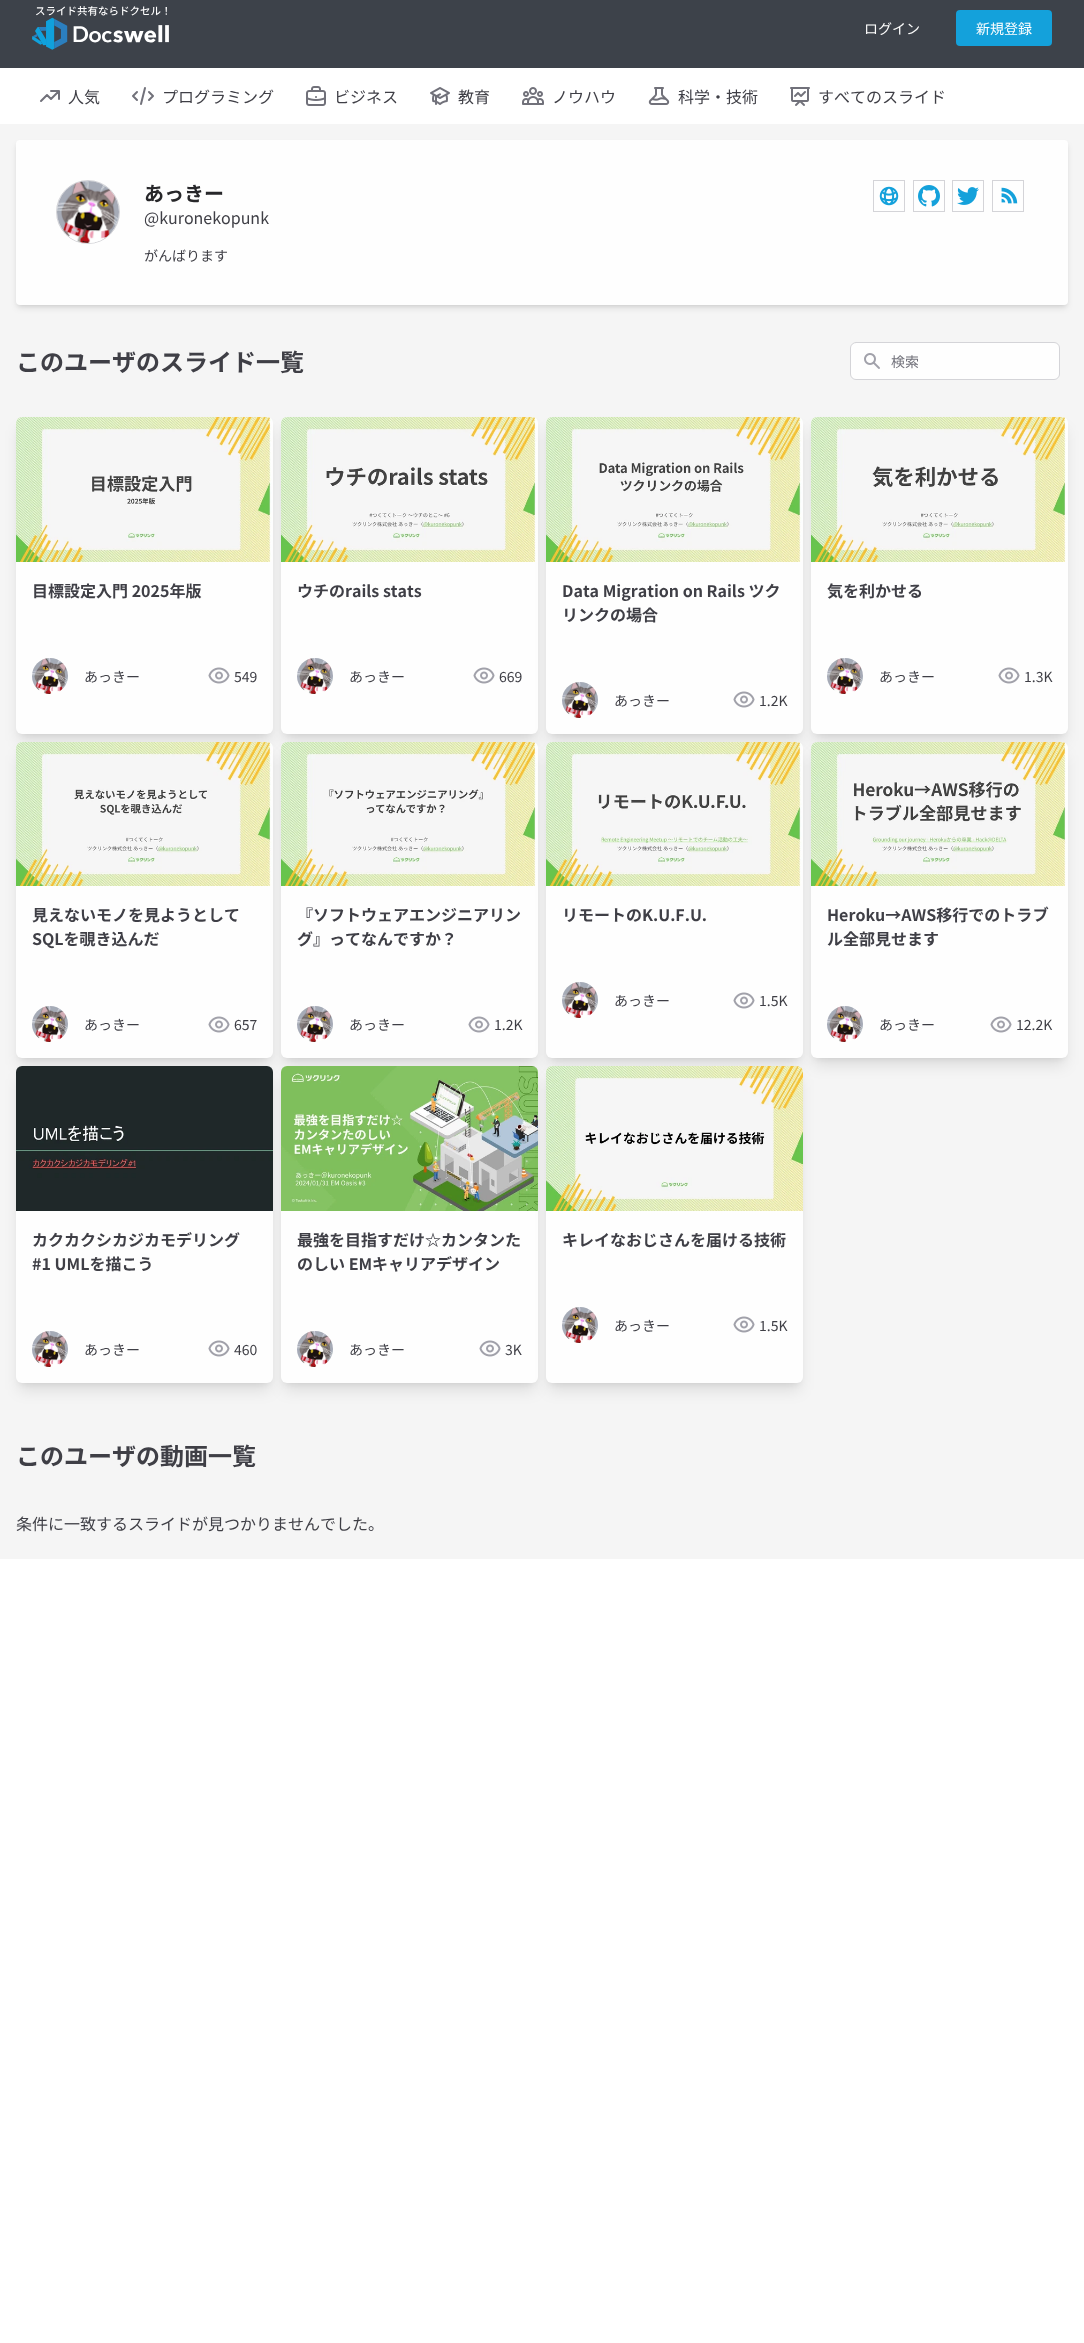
(async () => {
  const canvas = document.querySelector("canvas");
  canvas.width = 1084;
  canvas.height = 2343;
  const ctx = canvas.getContext("2d");
  ctx.miterLimit = 4;
  ctx.fontKerning = "none";
  async function loadImage(src) {
    const img = new Image();
    img.src = src;
    await img.decode();
    return img;
  }
  let path;

  ctx.fillStyle = "#ffffff";
  ctx.fillRect(0, 0, 1084, 2343);
  ctx.fillStyle = "#3d424a";
  ctx.fillRect(0, 0, 1084, 68);
  ctx.drawImage(await loadImage("img/1.png"), 32, 6, 137, 44);
  ctx.fillStyle = "#14a1db";
  ctx.beginPath();
  ctx.roundRect(956, 10, 96, 36, 4);
  ctx.fill();
  path = new Path2D("M51 91H59M59 91V99M59 91L51 99L47 95L41 101");
  ctx.strokeStyle = "#71717a";
  ctx.lineWidth = 2;
  ctx.lineCap = "round";
  ctx.lineJoin = "round";
  ctx.stroke(path);
  path = new Path2D("M141 104L145 88M149 92L153 96L149 100M137 100L133 96L137 92");
  ctx.stroke(path);
  ctx.drawImage(await loadImage("img/2.png"), 306, 86, 20, 20);
  ctx.drawImage(await loadImage("img/3.png"), 430, 87, 20, 18);
  ctx.drawImage(await loadImage("img/4.png"), 522, 87, 22, 18);
  ctx.drawImage(await loadImage("img/5.png"), 648, 87, 22, 18);
  ctx.drawImage(await loadImage("img/6.png"), 790, 87, 20, 19);
  ctx.fillStyle = "#f5f5f5";
  ctx.fillRect(0, 124, 1084, 1435);
  ctx.fillStyle = "rgba(0, 0, 0, 0.1)";
  ctx.filter = "blur(2px)";
  ctx.beginPath();
  ctx.roundRect(18, 144, 1048, 161, 2);
  ctx.fill();
  ctx.filter = "none";
  ctx.filter = "blur(3px)";
  ctx.beginPath();
  ctx.roundRect(17, 145, 1050, 163, 3);
  ctx.fill();
  ctx.filter = "none";
  ctx.fillStyle = "#fefefe";
  ctx.beginPath();
  ctx.roundRect(16, 140, 1052, 165, 4);
  ctx.fill();
  ctx.beginPath();
  ctx.arc(88, 212, 31.5, 0, Math.PI * 2);
  ctx.strokeStyle = "#d4d4d8";
  ctx.lineWidth = 1;
  ctx.stroke();
  ctx.drawImage(await loadImage("img/7.png"), 57, 181, 62, 62);
  ctx.lineJoin = "miter";
  ctx.strokeRect(873.5, 180.5, 31, 31);
  ctx.drawImage(await loadImage("img/8.png"), 879, 186, 20, 20);
  ctx.strokeRect(913.5, 180.5, 31, 31);
  ctx.drawImage(await loadImage("img/9.png"), 918, 185, 22, 22);
  ctx.strokeRect(952.5, 180.5, 31, 31);
  ctx.drawImage(await loadImage("img/10.png"), 957, 187, 22, 18);
  ctx.strokeRect(992.5, 180.5, 31, 31);
  ctx.drawImage(await loadImage("img/11.png"), 1001, 187, 17, 17);
  ctx.beginPath();
  ctx.roundRect(850.5, 342.5, 209, 37, 5.5);
  ctx.fill();
  ctx.stroke();
  ctx.drawImage(await loadImage("img/12.png"), 864, 353, 16, 16);
  ctx.fillStyle = "rgba(0, 0, 0, 0.1)";
  ctx.filter = "blur(3px)";
  ctx.beginPath();
  ctx.roundRect(20, 425, 249, 309, 2);
  ctx.fill();
  ctx.filter = "none";
  ctx.filter = "blur(7.5px)";
  ctx.beginPath();
  ctx.roundRect(19, 430, 251, 311, 3);
  ctx.fill();
  ctx.filter = "none";
  ctx.fillStyle = "#fefefe";
  ctx.beginPath();
  ctx.roundRect(16, 417, 257, 317, 6);
  ctx.fill();
  ctx.drawImage(await loadImage("img/13.png"), 16, 417, 256, 145);
  ctx.drawImage(await loadImage("img/14.png"), 32, 658, 36, 36);
  ctx.drawImage(await loadImage("img/15.png"), 208, 667, 22, 17);
  ctx.fillStyle = "rgba(0, 0, 0, 0.1)";
  ctx.filter = "blur(3px)";
  ctx.beginPath();
  ctx.roundRect(285, 425, 249, 309, 2);
  ctx.fill();
  ctx.filter = "none";
  ctx.filter = "blur(7.5px)";
  ctx.beginPath();
  ctx.roundRect(284, 430, 251, 311, 3);
  ctx.fill();
  ctx.filter = "none";
  ctx.fillStyle = "#fefefe";
  ctx.beginPath();
  ctx.roundRect(281, 417, 257, 317, 6);
  ctx.fill();
  ctx.drawImage(await loadImage("img/16.png"), 281, 417, 256, 145);
  ctx.drawImage(await loadImage("img/17.png"), 297, 658, 36, 36);
  ctx.drawImage(await loadImage("img/15.png"), 473, 667, 22, 17);
  ctx.fillStyle = "rgba(0, 0, 0, 0.1)";
  ctx.filter = "blur(3px)";
  ctx.beginPath();
  ctx.roundRect(550, 425, 249, 309, 2);
  ctx.fill();
  ctx.filter = "none";
  ctx.filter = "blur(7.5px)";
  ctx.beginPath();
  ctx.roundRect(549, 430, 251, 311, 3);
  ctx.fill();
  ctx.filter = "none";
  ctx.fillStyle = "#fefefe";
  ctx.beginPath();
  ctx.roundRect(546, 417, 257, 317, 6);
  ctx.fill();
  ctx.drawImage(await loadImage("img/18.png"), 546, 417, 256, 145);
  ctx.drawImage(await loadImage("img/19.png"), 562, 682, 36, 36);
  ctx.drawImage(await loadImage("img/15.png"), 733, 691, 22, 17);
  ctx.fillStyle = "rgba(0, 0, 0, 0.1)";
  ctx.filter = "blur(3px)";
  ctx.beginPath();
  ctx.roundRect(815, 425, 249, 309, 2);
  ctx.fill();
  ctx.filter = "none";
  ctx.filter = "blur(7.5px)";
  ctx.beginPath();
  ctx.roundRect(814, 430, 251, 311, 3);
  ctx.fill();
  ctx.filter = "none";
  ctx.fillStyle = "#fefefe";
  ctx.beginPath();
  ctx.roundRect(811, 417, 257, 317, 6);
  ctx.fill();
  ctx.drawImage(await loadImage("img/20.png"), 811, 417, 256, 145);
  ctx.drawImage(await loadImage("img/21.png"), 827, 658, 36, 36);
  ctx.drawImage(await loadImage("img/15.png"), 998, 667, 22, 17);
  ctx.fillStyle = "rgba(0, 0, 0, 0.1)";
  ctx.filter = "blur(3px)";
  ctx.beginPath();
  ctx.roundRect(20, 750, 249, 308, 2);
  ctx.fill();
  ctx.filter = "none";
  ctx.filter = "blur(7.5px)";
  ctx.beginPath();
  ctx.roundRect(19, 755, 251, 310, 3);
  ctx.fill();
  ctx.filter = "none";
  ctx.fillStyle = "#fefefe";
  ctx.beginPath();
  ctx.roundRect(16, 742, 257, 316, 6);
  ctx.fill();
  ctx.drawImage(await loadImage("img/22.png"), 16, 742, 256, 144);
  ctx.drawImage(await loadImage("img/14.png"), 32, 1006, 36, 36);
  ctx.drawImage(await loadImage("img/15.png"), 208, 1016, 22, 17);
  ctx.fillStyle = "rgba(0, 0, 0, 0.1)";
  ctx.filter = "blur(3px)";
  ctx.beginPath();
  ctx.roundRect(285, 750, 249, 308, 2);
  ctx.fill();
  ctx.filter = "none";
  ctx.filter = "blur(7.5px)";
  ctx.beginPath();
  ctx.roundRect(284, 755, 251, 310, 3);
  ctx.fill();
  ctx.filter = "none";
  ctx.fillStyle = "#fefefe";
  ctx.beginPath();
  ctx.roundRect(281, 742, 257, 316, 6);
  ctx.fill();
  ctx.drawImage(await loadImage("img/23.png"), 281, 742, 256, 144);
  ctx.drawImage(await loadImage("img/17.png"), 297, 1006, 36, 36);
  ctx.drawImage(await loadImage("img/15.png"), 468, 1016, 22, 17);
  ctx.fillStyle = "rgba(0, 0, 0, 0.1)";
  ctx.filter = "blur(3px)";
  ctx.beginPath();
  ctx.roundRect(550, 750, 249, 308, 2);
  ctx.fill();
  ctx.filter = "none";
  ctx.filter = "blur(7.5px)";
  ctx.beginPath();
  ctx.roundRect(549, 755, 251, 310, 3);
  ctx.fill();
  ctx.filter = "none";
  ctx.fillStyle = "#fefefe";
  ctx.beginPath();
  ctx.roundRect(546, 742, 257, 316, 6);
  ctx.fill();
  ctx.drawImage(await loadImage("img/24.png"), 546, 742, 256, 144);
  ctx.drawImage(await loadImage("img/25.png"), 562, 982, 36, 36);
  ctx.drawImage(await loadImage("img/15.png"), 733, 992, 22, 17);
  ctx.fillStyle = "rgba(0, 0, 0, 0.1)";
  ctx.filter = "blur(3px)";
  ctx.beginPath();
  ctx.roundRect(815, 750, 249, 308, 2);
  ctx.fill();
  ctx.filter = "none";
  ctx.filter = "blur(7.5px)";
  ctx.beginPath();
  ctx.roundRect(814, 755, 251, 310, 3);
  ctx.fill();
  ctx.filter = "none";
  ctx.fillStyle = "#fefefe";
  ctx.beginPath();
  ctx.roundRect(811, 742, 257, 316, 6);
  ctx.fill();
  ctx.drawImage(await loadImage("img/26.png"), 811, 742, 255, 144);
  ctx.drawImage(await loadImage("img/21.png"), 827, 1006, 36, 36);
  ctx.drawImage(await loadImage("img/15.png"), 990, 1016, 22, 17);
  ctx.fillStyle = "rgba(0, 0, 0, 0.1)";
  ctx.filter = "blur(3px)";
  ctx.beginPath();
  ctx.roundRect(20, 1074, 249, 309, 2);
  ctx.fill();
  ctx.filter = "none";
  ctx.filter = "blur(7.5px)";
  ctx.beginPath();
  ctx.roundRect(19, 1079, 251, 311, 3);
  ctx.fill();
  ctx.filter = "none";
  ctx.fillStyle = "#fefefe";
  ctx.beginPath();
  ctx.roundRect(16, 1066, 257, 317, 6);
  ctx.fill();
  ctx.drawImage(await loadImage("img/27.png"), 16, 1066, 257, 145);
  ctx.drawImage(await loadImage("img/14.png"), 32, 1331, 36, 36);
  ctx.drawImage(await loadImage("img/15.png"), 208, 1340, 22, 17);
  ctx.fillStyle = "rgba(0, 0, 0, 0.1)";
  ctx.filter = "blur(3px)";
  ctx.beginPath();
  ctx.roundRect(285, 1074, 249, 309, 2);
  ctx.fill();
  ctx.filter = "none";
  ctx.filter = "blur(7.5px)";
  ctx.beginPath();
  ctx.roundRect(284, 1079, 251, 311, 3);
  ctx.fill();
  ctx.filter = "none";
  ctx.fillStyle = "#fefefe";
  ctx.beginPath();
  ctx.roundRect(281, 1066, 257, 317, 6);
  ctx.fill();
  ctx.drawImage(await loadImage("img/28.png"), 281, 1066, 257, 145);
  ctx.drawImage(await loadImage("img/17.png"), 297, 1331, 36, 36);
  ctx.drawImage(await loadImage("img/15.png"), 479, 1340, 22, 17);
  ctx.fillStyle = "rgba(0, 0, 0, 0.1)";
  ctx.filter = "blur(3px)";
  ctx.beginPath();
  ctx.roundRect(550, 1074, 249, 309, 2);
  ctx.fill();
  ctx.filter = "none";
  ctx.filter = "blur(7.5px)";
  ctx.beginPath();
  ctx.roundRect(549, 1079, 251, 311, 3);
  ctx.fill();
  ctx.filter = "none";
  ctx.fillStyle = "#fefefe";
  ctx.beginPath();
  ctx.roundRect(546, 1066, 257, 317, 6);
  ctx.fill();
  ctx.drawImage(await loadImage("img/29.png"), 546, 1066, 257, 145);
  ctx.drawImage(await loadImage("img/19.png"), 562, 1307, 36, 36);
  ctx.drawImage(await loadImage("img/15.png"), 733, 1316, 22, 17);
  ctx.font = "14px Noto Sans JP";
  ctx.fillText("ログイン", 864, 34);
  ctx.fillText("新規登録", 976, 34);
  ctx.font = "16px Noto Sans JP";
  ctx.fillStyle = "#3f3f46";
  for (const [text, x, y] of [
    ["人気", 68, 103],
    ["プログラミング", 162, 103],
    ["ビジネス", 334, 103],
    ["教育", 458, 103],
    ["ノウハウ", 552, 103],
    ["科学・技術", 678, 103],
    ["すべてのスライド", 818, 103],
  ]) {
    ctx.fillText(text, x, y);
  }
  ctx.font = "bold 20px Noto Sans JP";
  ctx.fillStyle = "#27272a";
  ctx.fillText("あっきー", 144, 201);
  ctx.font = "16px Noto Sans JP";
  ctx.fillStyle = "#3f3f46";
  ctx.fillText("@kuronekopunk", 144, 224);
  ctx.font = "14px Noto Sans JP";
  ctx.fillText("がんばります", 144, 261);
  ctx.font = "bold 24px Noto Sans JP";
  ctx.fillText("このユーザのスライド一覧", 16, 371);
  ctx.font = "14px Noto Sans JP";
  ctx.fillStyle = "#71717a";
  ctx.fillText("検索", 891, 367);
  ctx.font = "bold 16px Noto Sans JP";
  ctx.fillStyle = "#3f3f46";
  ctx.fillText("目標設定入門 2025年版", 32, 597);
  ctx.font = "14px Noto Sans JP";
  ctx.fillText("あっきー", 84, 682);
  ctx.fillText("549", 234, 682);
  ctx.font = "bold 16px Noto Sans JP";
  ctx.fillText("ウチのrails stats", 297, 597);
  ctx.font = "14px Noto Sans JP";
  ctx.fillText("あっきー", 349, 682);
  ctx.fillText("669", 499, 682);
  ctx.font = "bold 16px Noto Sans JP";
  ctx.fillText("Data Migration on Rails ツク", 562, 597);
  ctx.fillText("リンクの場合", 562, 621);
  ctx.font = "14px Noto Sans JP";
  ctx.fillText("あっきー", 614, 706);
  ctx.fillText("1.2K", 759, 706);
  ctx.font = "bold 16px Noto Sans JP";
  ctx.fillText("気を利かせる", 827, 597);
  ctx.font = "14px Noto Sans JP";
  ctx.fillText("あっきー", 879, 682);
  ctx.fillText("1.3K", 1024, 682);
  ctx.font = "bold 16px Noto Sans JP";
  ctx.fillText("見えないモノを見ようとして", 32, 921);
  ctx.fillText("SQLを覗き込んだ", 32, 945);
  ctx.font = "14px Noto Sans JP";
  ctx.fillText("あっきー", 84, 1030);
  ctx.fillText("657", 234, 1030);
  ctx.font = "bold 16px Noto Sans JP";
  ctx.fillText("『ソフトウェアエンジニアリン", 297, 921);
  ctx.fillText("グ』ってなんですか？", 297, 945);
  ctx.font = "14px Noto Sans JP";
  ctx.fillText("あっきー", 349, 1030);
  ctx.fillText("1.2K", 494, 1030);
  ctx.font = "bold 16px Noto Sans JP";
  ctx.fillText("リモートのK.U.F.U.", 562, 921);
  ctx.font = "14px Noto Sans JP";
  ctx.fillText("あっきー", 614, 1006);
  ctx.fillText("1.5K", 759, 1006);
  ctx.font = "bold 16px Noto Sans JP";
  ctx.fillText("Heroku→AWS移行でのトラブ", 827, 921);
  ctx.fillText("ル全部見せます", 827, 945);
  ctx.font = "14px Noto Sans JP";
  ctx.fillText("あっきー", 879, 1030);
  ctx.fillText("12.2K", 1016, 1030);
  ctx.font = "bold 16px Noto Sans JP";
  ctx.fillText("カクカクシカジカモデリング", 32, 1246);
  ctx.fillText("#1 UMLを描こう", 32, 1270);
  ctx.font = "14px Noto Sans JP";
  ctx.fillText("あっきー", 84, 1355);
  ctx.fillText("460", 234, 1355);
  ctx.font = "bold 16px Noto Sans JP";
  ctx.fillText("最強を目指すだけ☆カンタンた", 297, 1246);
  ctx.fillText("のしい EMキャリアデザイン", 297, 1270);
  ctx.font = "14px Noto Sans JP";
  ctx.fillText("あっきー", 349, 1355);
  ctx.fillText("3K", 505, 1355);
  ctx.font = "bold 16px Noto Sans JP";
  ctx.fillText("キレイなおじさんを届ける技術", 562, 1246);
  ctx.font = "14px Noto Sans JP";
  ctx.fillText("あっきー", 614, 1331);
  ctx.fillText("1.5K", 759, 1331);
  ctx.font = "bold 24px Noto Sans JP";
  ctx.fillText("このユーザの動画一覧", 16, 1465);
  ctx.font = "16px Noto Sans JP";
  ctx.fillText("条件に一致するスライドが見つかりませんでした。", 16, 1530);
})();
